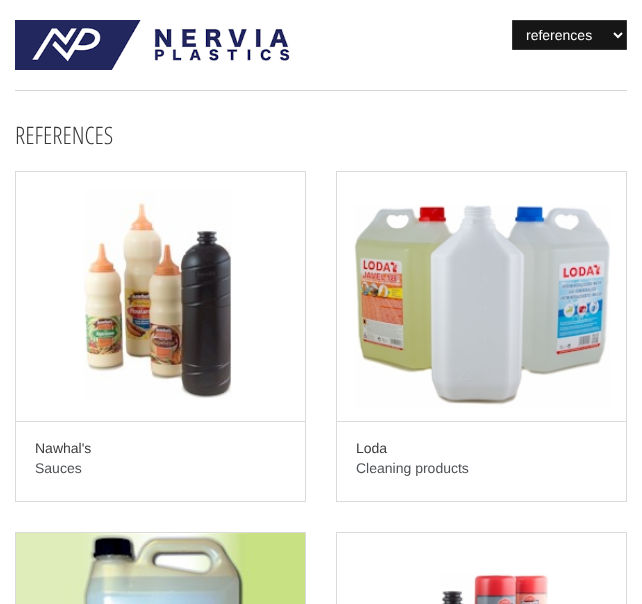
(async () => {
  const canvas = document.querySelector("canvas");
  canvas.width = 642;
  canvas.height = 604;
  const ctx = canvas.getContext("2d");
  ctx.miterLimit = 4;
  ctx.fontKerning = "normal";
  async function loadImage(src) {
    const img = new Image();
    img.src = src;
    await img.decode();
    return img;
  }
  let path;

  ctx.fillStyle = "#ffffff";
  ctx.fillRect(0, 0, 642, 604);
  ctx.fillStyle = "#d5d6d5";
  ctx.fillRect(15, 90, 612, 1);
  ctx.drawImage(await loadImage("img/1.png"), 15, 20, 275, 50);
  ctx.fillStyle = "#161616";
  ctx.beginPath();
  ctx.rect(512.5, 20.5, 114, 29);
  ctx.fill();
  ctx.strokeStyle = "#343434";
  ctx.stroke();
  path = new Path2D("M614 33L618 37L622 33");
  ctx.strokeStyle = "#ffffff";
  ctx.lineWidth = 2;
  ctx.stroke(path);
  ctx.strokeStyle = "#dadada";
  ctx.lineWidth = 1;
  ctx.strokeRect(15.5, 171.5, 290, 330);
  ctx.fillStyle = "#dadada";
  ctx.fillRect(16, 421, 289, 1);
  ctx.drawImage(await loadImage("img/2.png"), 83, 190, 149, 209);
  ctx.strokeRect(336.5, 171.5, 290, 330);
  ctx.fillRect(337, 421, 289, 1);
  ctx.drawImage(await loadImage("img/3.png"), 354, 205, 256, 203);
  ctx.strokeRect(15.5, 532.5, 290, 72);
  ctx.drawImage(await loadImage("img/4.png"), 16, 533, 289, 71);
  ctx.strokeRect(336.5, 532.5, 290, 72);
  ctx.drawImage(await loadImage("img/5.png"), 441, 573, 108, 31);
  ctx.font = "14px Liberation Sans";
  ctx.fillStyle = "#ffffff";
  ctx.fillText("references", 526, 40);
  ctx.font = "300 24px Open Sans Condensed";
  ctx.fillStyle = "#3a3a3a";
  ctx.fillText("REFERENCES", 15, 144);
  ctx.font = "14px Liberation Sans";
  ctx.fillText("Nawhal's", 35, 453);
  ctx.fillStyle = "#4e5256";
  ctx.fillText("Sauces", 35, 473);
  ctx.fillStyle = "#3a3a3a";
  ctx.fillText("Loda", 356, 453);
  ctx.fillStyle = "#4e5256";
  ctx.fillText("Cleaning products", 356, 473);
})();
